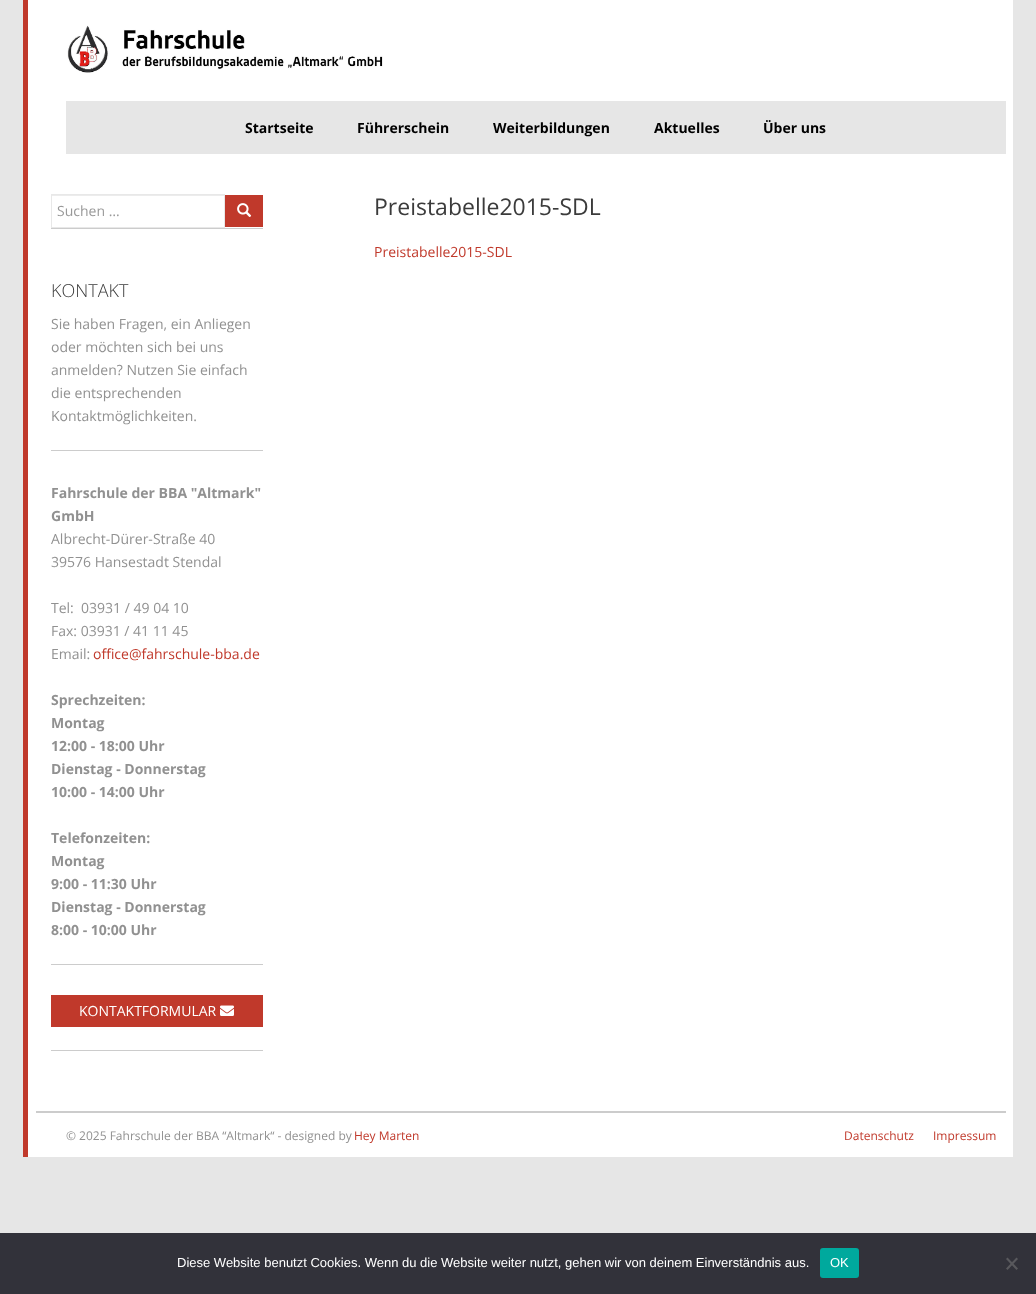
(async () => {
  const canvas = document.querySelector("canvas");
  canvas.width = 1036;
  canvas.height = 1294;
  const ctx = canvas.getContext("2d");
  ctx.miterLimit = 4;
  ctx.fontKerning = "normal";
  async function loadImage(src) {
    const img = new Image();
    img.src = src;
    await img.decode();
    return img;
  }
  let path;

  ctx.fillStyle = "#e6e6e6";
  ctx.fillRect(0, 0, 1036, 1294);
  ctx.fillStyle = "#ffffff";
  ctx.fillRect(28, 0, 985, 1157);
  ctx.fillStyle = "#c0392b";
  ctx.fillRect(23, 0, 5, 1157);
  ctx.drawImage(await loadImage("img/1.png"), 67, 25, 316, 48);
  for (const [x, y, w, h, color] of [
    [66, 101, 940, 53, "#e6e6e6"],
    [51, 228, 212, 1, "#cccccc"],
    [52, 195, 172, 1, "#ececec"],
  ]) {
    ctx.fillStyle = color;
    ctx.fillRect(x, y, w, h);
  }
  ctx.strokeStyle = "#e8e8e8";
  ctx.strokeRect(51.5, 194.5, 173, 33);
  ctx.fillStyle = "#c0392b";
  ctx.fillRect(225, 195, 38, 32);
  ctx.drawImage(await loadImage("img/2.png"), 237, 203, 15, 14);
  for (const [x, y, w, h, color] of [
    [51, 450, 212, 1, "#cccccc"],
    [51, 964, 212, 1, "#cccccc"],
    [51, 1050, 212, 1, "#cccccc"],
    [51, 995, 212, 32, "#c0392b"],
  ]) {
    ctx.fillStyle = color;
    ctx.fillRect(x, y, w, h);
  }
  ctx.drawImage(await loadImage("img/3.png"), 220, 1005, 14, 11);
  ctx.fillStyle = "#cccccc";
  ctx.fillRect(36, 1111, 970, 2);
  ctx.fillStyle = "#32323a";
  ctx.fillRect(0, 1233, 1036, 61);
  ctx.fillStyle = "#00a99d";
  ctx.beginPath();
  ctx.roundRect(820, 1248, 39, 30, 3);
  ctx.fill();
  ctx.fillStyle = "#59595d";
  path = new Path2D("M1016.5 1257.5L1018 1259L1007.5 1270L1006 1268.5Z");
  ctx.fill(path);
  path = new Path2D("M1006 1259L1007.5 1257.5L1018 1268.5L1016.5 1270Z");
  ctx.fill(path);
  ctx.font = "bold 14px Open Sans";
  ctx.fillStyle = "#000000";
  for (const [text, x, y] of [
    ["Startseite", 245, 133],
    ["Führerschein", 357, 133],
    ["Weiterbildungen", 493, 133],
    ["Aktuelles", 654, 133],
    ["Über uns", 763, 133],
  ]) {
    ctx.fillText(text, x, y);
  }
  ctx.font = "14px Open Sans";
  ctx.fillStyle = "#999999";
  ctx.fillText("Suchen …", 57, 216);
  ctx.font = "300 18px Open Sans";
  ctx.fillStyle = "#3b3b3b";
  ctx.fillText("KONTAKT", 51, 297);
  ctx.font = "14px Open Sans";
  ctx.fillStyle = "#919191";
  for (const [text, x, y] of [
    ["Sie haben Fragen, ein Anliegen", 51, 329],
    ["oder möchten sich bei uns", 51, 352],
    ["anmelden? Nutzen Sie einfach", 51, 375],
    ["die entsprechenden", 51, 398],
    ["Kontaktmöglichkeiten.", 51, 421],
  ]) {
    ctx.fillText(text, x, y);
  }
  ctx.font = "bold 14px Open Sans";
  ctx.fillText("Fahrschule der BBA \"Altmark\"", 51, 498);
  ctx.fillText("GmbH", 51, 521);
  ctx.font = "14px Open Sans";
  for (const [text, x, y] of [
    ["Albrecht-Dürer-Straße 40", 51, 544],
    ["39576 Hansestadt Stendal", 51, 567],
    ["Tel:  03931 / 49 04 10", 51, 613],
    ["Fax: 03931 / 41 11 45", 51, 636],
    ["Email:", 51, 659],
  ]) {
    ctx.fillText(text, x, y);
  }
  ctx.fillStyle = "#c0392b";
  ctx.fillText("office@fahrschule-bba.de", 93, 659);
  ctx.font = "bold 14px Open Sans";
  ctx.fillStyle = "#919191";
  for (const [text, x, y] of [
    ["Sprechzeiten:", 51, 705],
    ["Montag", 51, 728],
    ["12:00 - 18:00 Uhr", 51, 751],
    ["Dienstag - Donnerstag", 51, 774],
    ["10:00 - 14:00 Uhr", 51, 797],
    ["Telefonzeiten:", 51, 843],
    ["Montag", 51, 866],
    ["9:00 - 11:30 Uhr", 51, 889],
    ["Dienstag - Donnerstag", 51, 912],
    ["8:00 - 10:00 Uhr", 51, 935],
  ]) {
    ctx.fillText(text, x, y);
  }
  ctx.font = "14px Open Sans";
  ctx.fillStyle = "#ffffff";
  ctx.fillText("KONTAKTFORMULAR", 79, 1016);
  ctx.font = "23px Open Sans";
  ctx.fillStyle = "#3b3b3b";
  ctx.fillText("Preistabelle2015-SDL", 374, 215);
  ctx.font = "14px Open Sans";
  ctx.fillStyle = "#c0392b";
  ctx.fillText("Preistabelle2015-SDL", 374, 257);
  ctx.font = "12px Open Sans";
  ctx.fillStyle = "#919191";
  ctx.fillText("© 2025 Fahrschule der BBA “Altmark“ - designed by", 66, 1140);
  ctx.fillStyle = "#c0392b";
  for (const [text, x, y] of [
    ["Hey Marten", 354, 1140],
    ["Datenschutz", 844, 1140],
    ["Impressum", 933, 1140],
  ]) {
    ctx.fillText(text, x, y);
  }
  ctx.font = "13px Liberation Sans";
  ctx.fillStyle = "#ffffff";
  ctx.fillText("Diese Website benutzt Cookies. Wenn du die Website weiter nutzt, gehen wir von deinem Einverständnis aus.", 177, 1267);
  ctx.fillText("OK", 830, 1267);
})();
